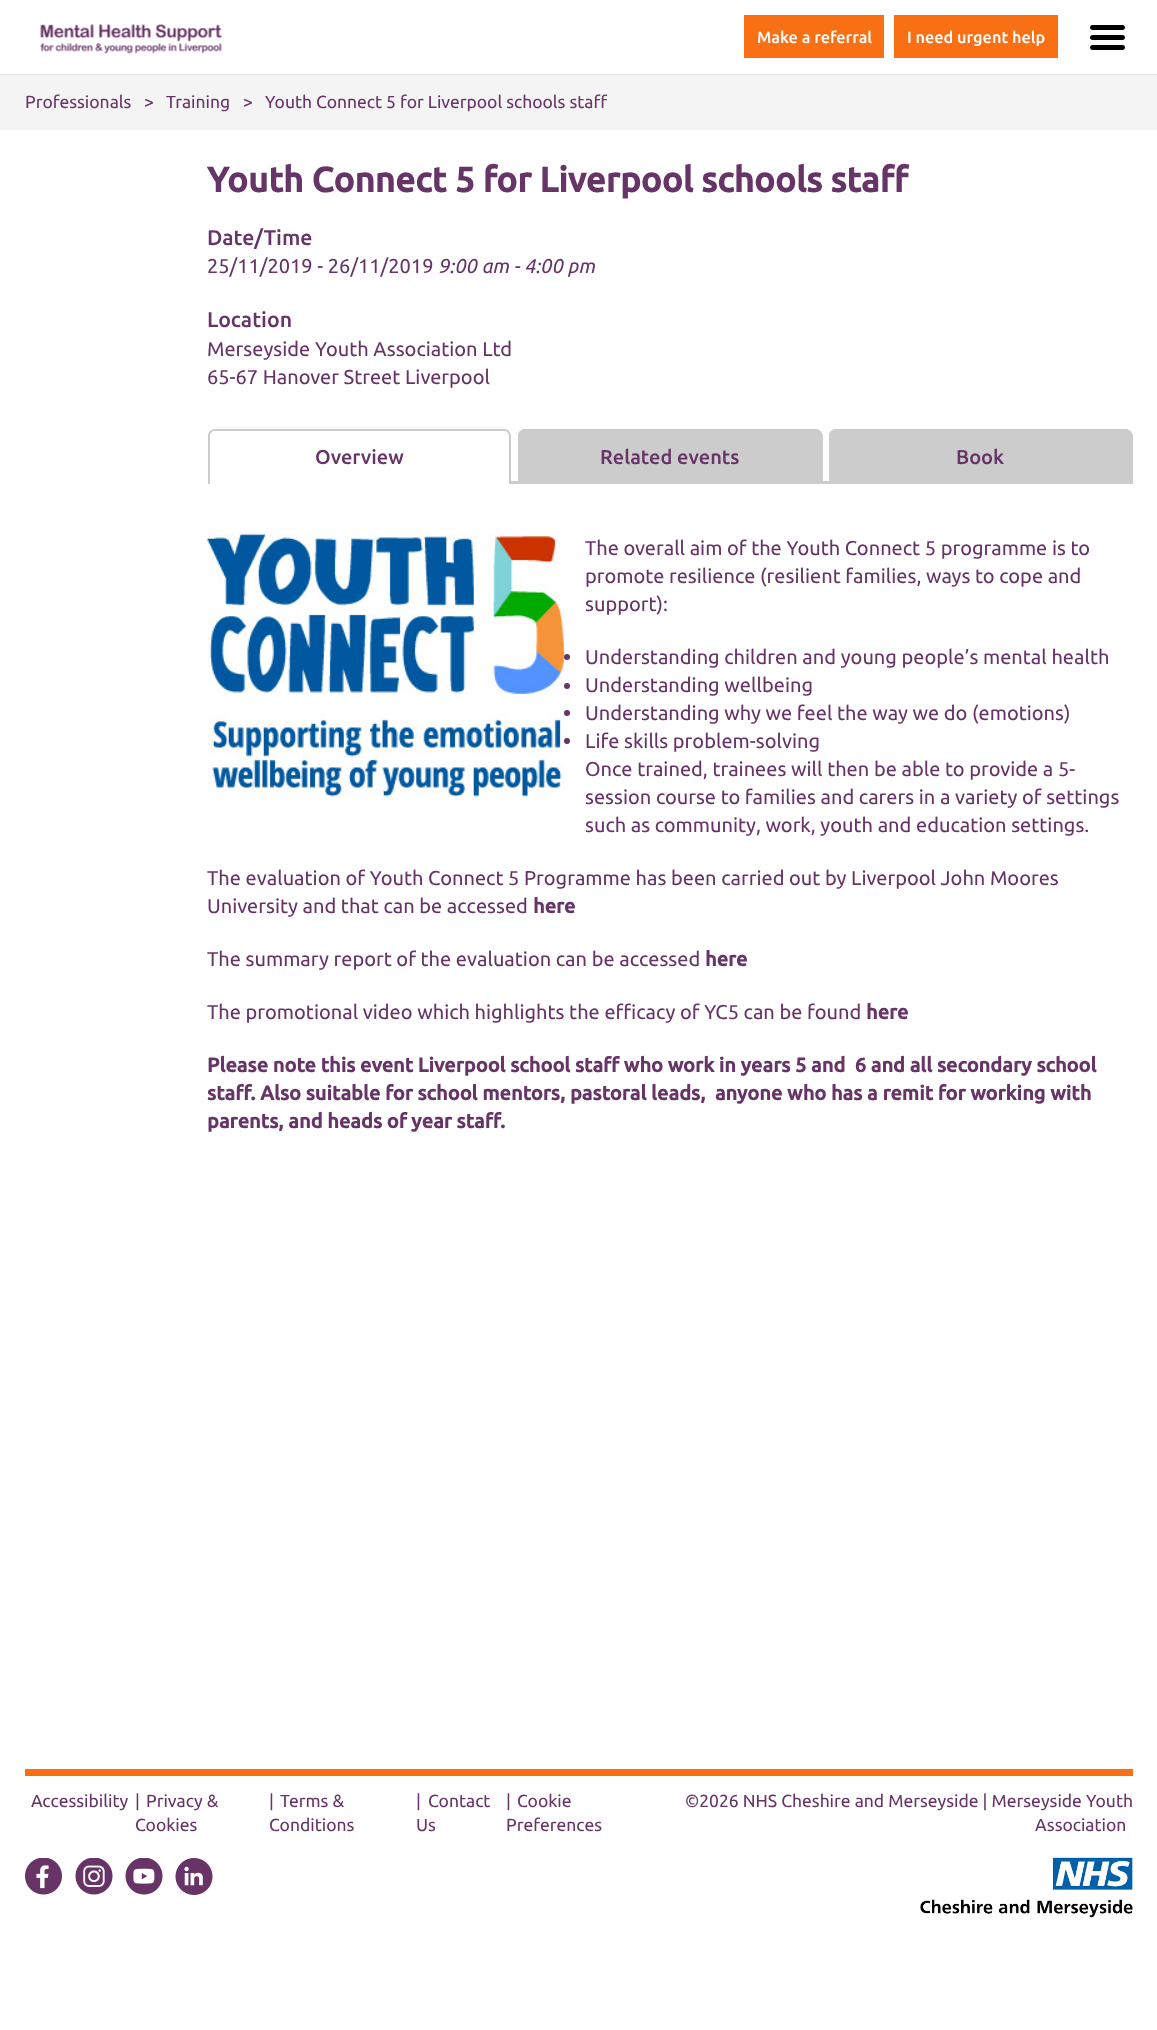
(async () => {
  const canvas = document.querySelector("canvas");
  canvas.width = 1157;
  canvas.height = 2030;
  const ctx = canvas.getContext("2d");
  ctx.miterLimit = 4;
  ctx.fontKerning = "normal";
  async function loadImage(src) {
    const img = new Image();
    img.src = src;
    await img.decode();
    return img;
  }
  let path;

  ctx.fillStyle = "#ffffff";
  ctx.fillRect(0, 0, 1157, 2030);
  ctx.fillStyle = "#e3e3e3";
  ctx.fillRect(0, 74, 1157, 1);
  ctx.drawImage(await loadImage("img/1.png"), 40, 24, 182, 30);
  ctx.fillStyle = "#f96f13";
  ctx.fillRect(744, 15, 140, 43);
  ctx.fillRect(894, 15, 164, 43);
  ctx.drawImage(await loadImage("img/2.png"), 1090, 25, 35, 25);
  ctx.fillStyle = "#f4f4f4";
  ctx.fillRect(0, 75, 1157, 55);
  ctx.fillStyle = "#cccccc";
  path = new Path2D("M215 429H504C508 429 511 432 511 436V484H208V436C208 432 211 429 215 429ZM215 431H504C507 431 509 433 509 436V484H210V436C210 433 212 431 215 431Z");
  ctx.fill(path, "evenodd");
  ctx.fillRect(511, 481, 7, 3);
  ctx.beginPath();
  ctx.roundRect(518, 429, 305, 55, [8, 8, 0, 0]);
  ctx.fill();
  path = new Path2D("M525 429H815C819 429 822 432 822 436V484H518V436C518 432 521 429 525 429ZM525 431H815C818 431 820 433 820 436V484H520V436C520 433 522 431 525 431Z");
  ctx.fill(path, "evenodd");
  ctx.fillRect(823, 481, 6, 3);
  ctx.beginPath();
  ctx.roundRect(829, 429, 304, 55, [8, 8, 0, 0]);
  ctx.fill();
  path = new Path2D("M836 429H1125C1129 429 1132 432 1132 436V484H829V436C829 432 832 429 836 429ZM836 431H1125C1128 431 1130 433 1130 436V484H831V436C831 433 833 431 836 431Z");
  ctx.fill(path, "evenodd");
  ctx.drawImage(await loadImage("img/3.png"), 207, 533, 358, 264);
  ctx.fillStyle = "#673467";
  ctx.beginPath();
  ctx.arc(567, 657, 3, 0, Math.PI * 2);
  ctx.fill();
  ctx.beginPath();
  ctx.arc(567, 686, 3, 0, Math.PI * 2);
  ctx.fill();
  ctx.beginPath();
  ctx.arc(567, 713, 3, 0, Math.PI * 2);
  ctx.fill();
  ctx.beginPath();
  ctx.arc(567, 741, 3, 0, Math.PI * 2);
  ctx.fill();
  ctx.fillStyle = "#f96f13";
  ctx.fillRect(25, 1769, 1108, 7);
  ctx.drawImage(await loadImage("img/4.png"), 25, 1858, 37, 37);
  ctx.drawImage(await loadImage("img/5.png"), 75, 1858, 38, 37);
  ctx.drawImage(await loadImage("img/6.png"), 125, 1858, 38, 37);
  ctx.drawImage(await loadImage("img/7.png"), 175, 1858, 38, 37);
  ctx.drawImage(await loadImage("img/8.png"), 920, 1857, 213, 61);
  ctx.font = "500 16.25px Ubuntu";
  ctx.fillStyle = "#ffffff";
  ctx.fillText("Make a referral", 757, 43);
  ctx.fillText("I need urgent help", 907, 43);
  ctx.font = "17.5px Ubuntu";
  ctx.fillStyle = "#673467";
  for (const [text, x, y] of [
    ["Professionals", 25, 108],
    [">", 144, 108],
    ["Training", 166, 108],
    [">", 243, 108],
    ["Youth Connect 5 for Liverpool schools staff", 265, 108],
  ]) {
    ctx.fillText(text, x, y);
  }
  ctx.font = "bold 35px Ubuntu";
  ctx.fillText("Youth Connect 5 for Liverpool schools staff", 207, 192);
  ctx.font = "500 21.25px Ubuntu";
  ctx.fillText("Date/Time", 207, 245);
  ctx.font = "20px Ubuntu";
  ctx.fillText("25/11/2019 - 26/11/2019", 207, 273);
  ctx.font = "italic 20px Ubuntu";
  ctx.fillText("9:00 am - 4:00 pm", 438, 273);
  ctx.font = "500 21.25px Ubuntu";
  ctx.fillText("Location", 207, 327);
  ctx.font = "20px Ubuntu";
  ctx.fillText("Merseyside Youth Association Ltd", 207, 356);
  ctx.fillText("65-67 Hanover Street Liverpool", 207, 384);
  ctx.font = "500 20px Ubuntu";
  for (const [text, x, y] of [
    ["Overview", 315, 464],
    ["Related events", 600, 464],
    ["Book", 956, 464],
  ]) {
    ctx.fillText(text, x, y);
  }
  ctx.font = "20px Ubuntu";
  for (const [text, x, y] of [
    ["The overall aim of the Youth Connect 5 programme is to", 585, 555],
    ["promote resilience (resilient families, ways to cope and", 585, 583],
    ["support):", 585, 611],
    ["Understanding children and young people’s mental health", 585, 664],
    ["Understanding wellbeing", 585, 692],
    ["Understanding why we feel the way we do (emotions)", 585, 720],
    ["Life skills problem-solving", 585, 748],
    ["Once trained, trainees will then be able to provide a 5-", 585, 776],
    ["session course to families and carers in a variety of settings", 585, 804],
    ["such as community, work, youth and education settings.", 585, 832],
    ["The evaluation of Youth Connect 5 Programme has been carried out by Liverpool John Moores", 207, 885],
    ["University and that can be accessed", 207, 913],
  ]) {
    ctx.fillText(text, x, y);
  }
  ctx.font = "bold 20px Ubuntu";
  ctx.fillText("here", 533, 913);
  ctx.font = "20px Ubuntu";
  ctx.fillText("The summary report of the evaluation can be accessed", 207, 966);
  ctx.font = "bold 20px Ubuntu";
  ctx.fillText("here", 705, 966);
  ctx.font = "20px Ubuntu";
  ctx.fillText("The promotional video which highlights the efficacy of YC5 can be found", 207, 1019);
  ctx.font = "bold 20px Ubuntu";
  for (const [text, x, y] of [
    ["here", 866, 1019],
    ["Please note this event Liverpool school staff who work in years 5 and  6 and all secondary school", 207, 1072],
    ["staff. Also suitable for school mentors, pastoral leads,  anyone who has a remit for working with", 207, 1100],
    ["parents, and heads of year staff.", 207, 1128],
  ]) {
    ctx.fillText(text, x, y);
  }
  ctx.font = "17.5px Ubuntu";
  for (const [text, x, y] of [
    ["Accessibility", 31, 1807],
    ["|", 135, 1807],
    ["Privacy &", 146, 1807],
    ["Cookies", 135, 1831],
    ["|", 269, 1807],
    ["Terms &", 280, 1807],
    ["Conditions", 269, 1831],
    ["|", 416, 1807],
    ["Contact", 428, 1807],
    ["Us", 416, 1831],
    ["|", 506, 1807],
    ["Cookie", 517, 1807],
    ["Preferences", 506, 1831],
    ["©2026 NHS Cheshire and Merseyside | Merseyside Youth", 685, 1807],
    ["Association", 1035, 1831],
  ]) {
    ctx.fillText(text, x, y);
  }
})();
